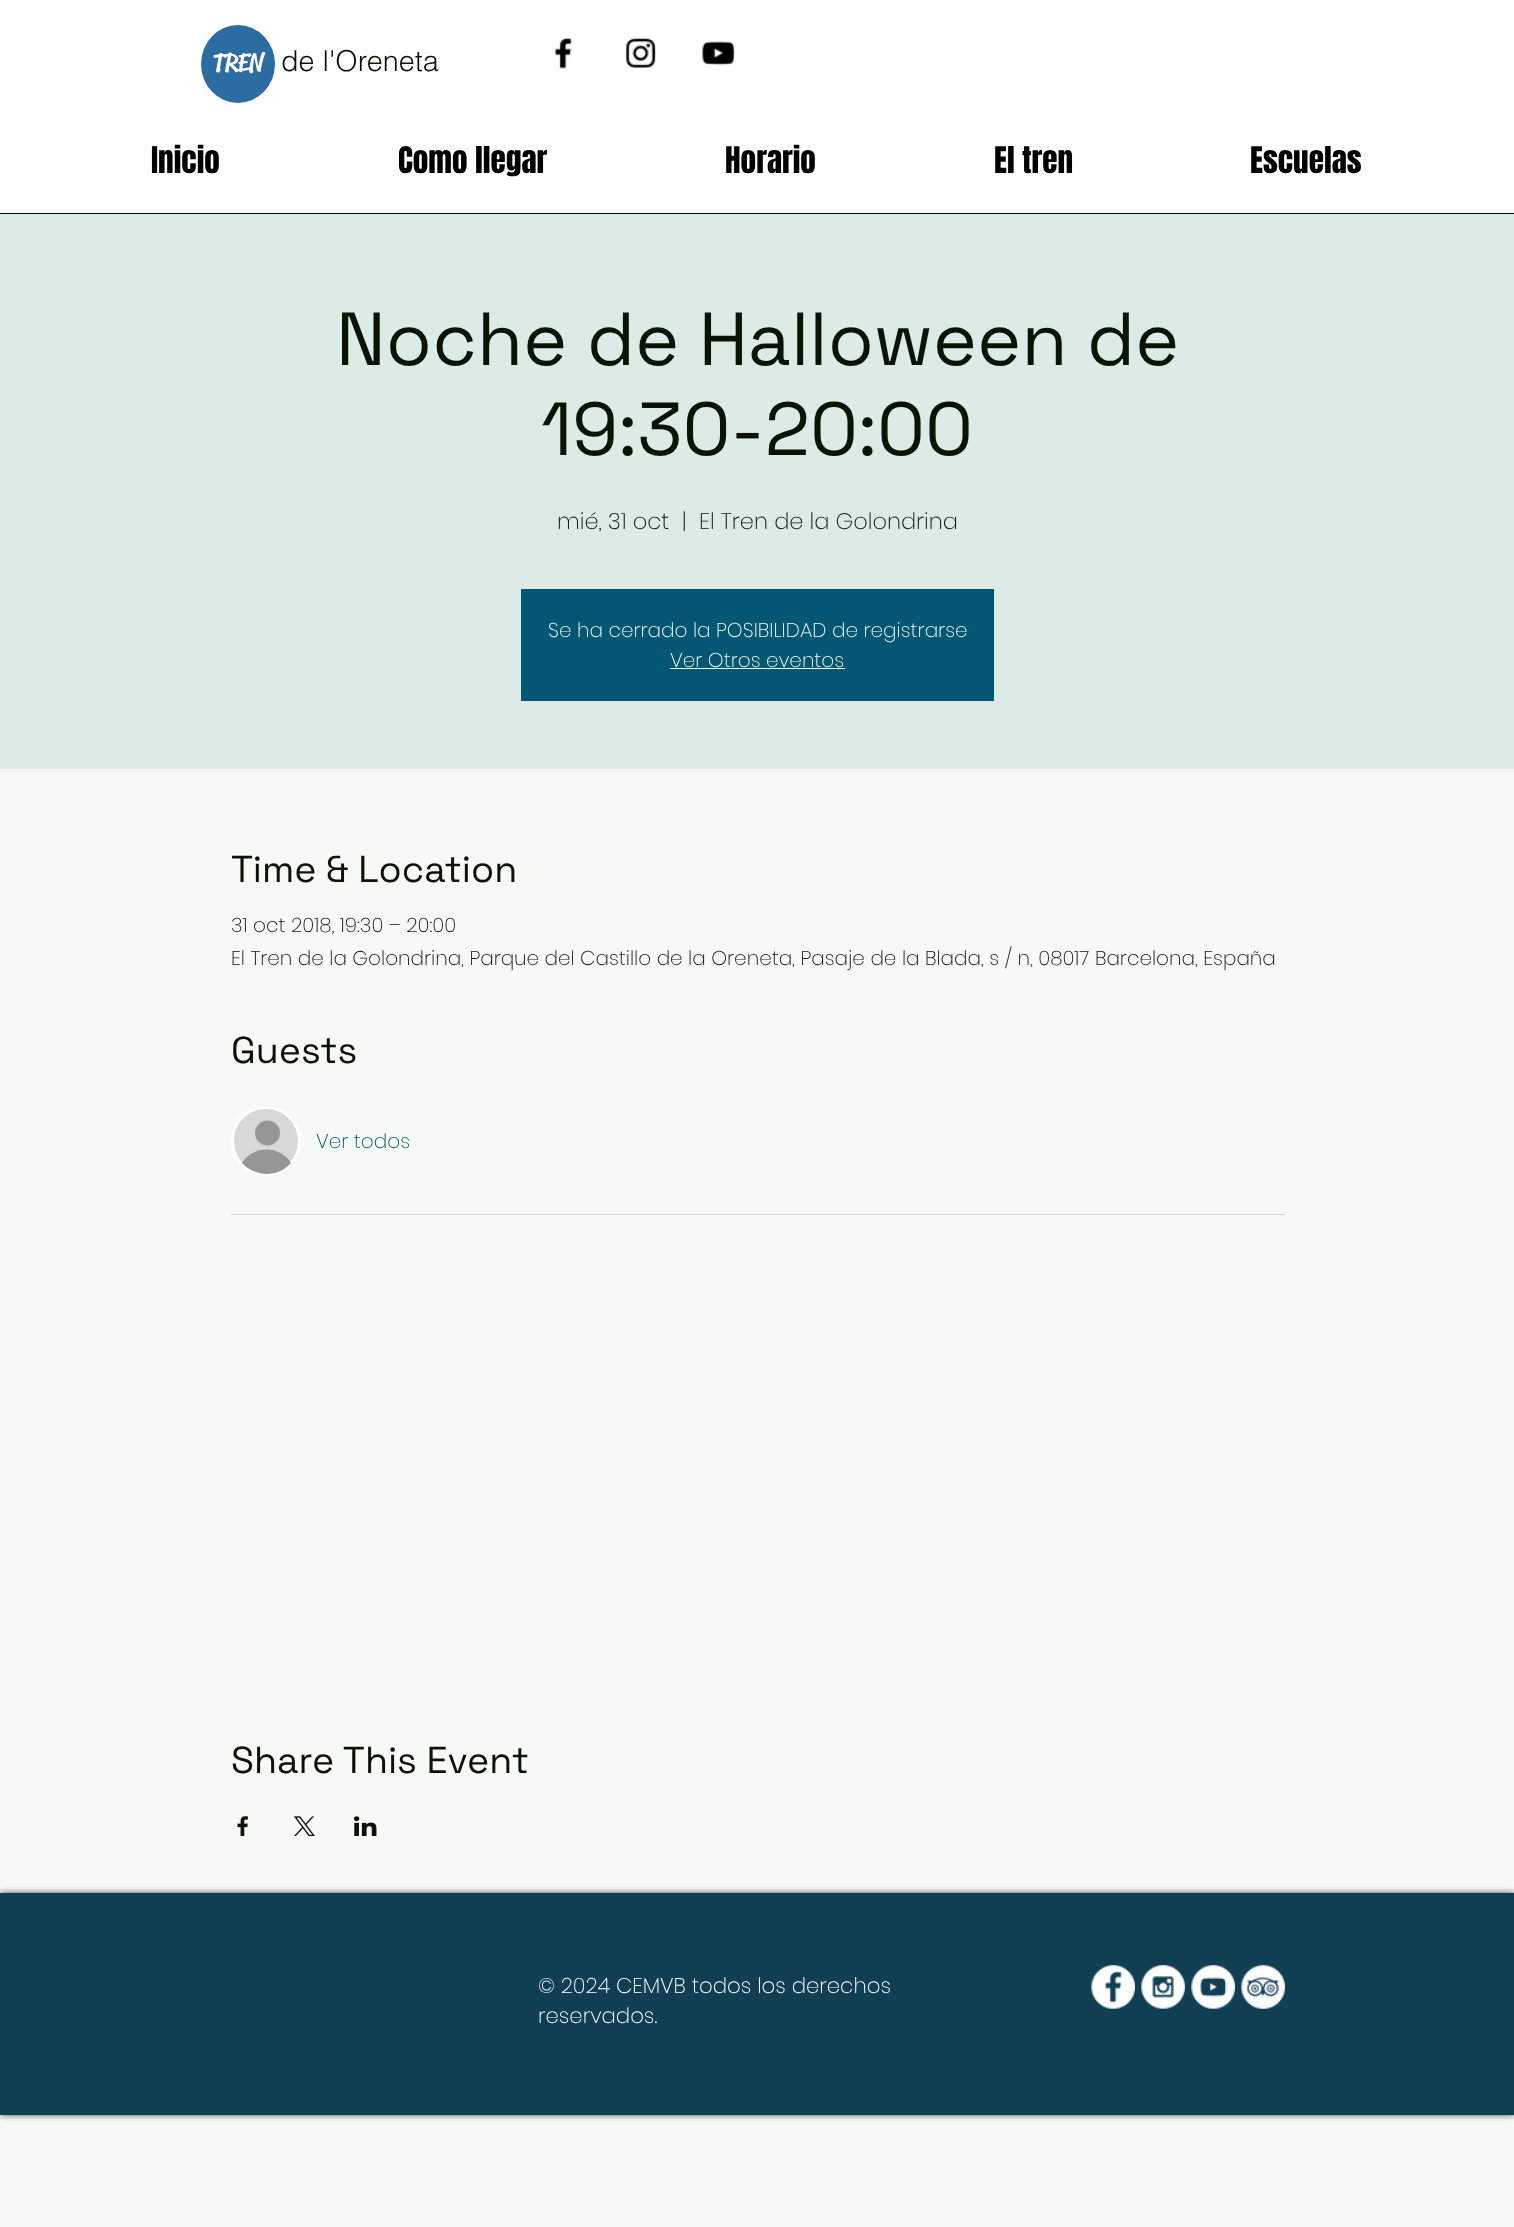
(async () => {
  const canvas = document.querySelector("canvas");
  canvas.width = 1514;
  canvas.height = 2227;
  const ctx = canvas.getContext("2d");
  ctx.miterLimit = 4;
  ctx.fontKerning = "normal";
  async function loadImage(src) {
    const img = new Image();
    img.src = src;
    await img.decode();
    return img;
  }
  let path;

  ctx.fillStyle = "#f6f9f5";
  ctx.fillRect(0, 0, 1514, 2227);
  ctx.fillStyle = "#091405";
  ctx.fillRect(0, 213, 1514, 1);
  ctx.fillStyle = "#ffffff";
  ctx.fillRect(0, 0, 1514, 213);
  ctx.fillStyle = "#2b6ca3";
  ctx.beginPath();
  ctx.ellipse(238, 64, 37, 39, 0, 0, Math.PI * 2);
  ctx.fill();
  ctx.drawImage(await loadImage("img/1.png"), 554, 37, 18, 32);
  ctx.drawImage(await loadImage("img/2.png"), 625, 37, 31, 32);
  ctx.drawImage(await loadImage("img/3.png"), 701, 41, 34, 25);
  for (const [x, y, w, h, color] of [
    [0, 214, 1514, 555, "#ddebe7"],
    [521, 589, 473, 112, "#035772"],
    [670, 668, 175, 1, "#f6f9f5"],
  ]) {
    ctx.fillStyle = color;
    ctx.fillRect(x, y, w, h);
  }
  ctx.fillStyle = "#d8d8d8";
  ctx.beginPath();
  ctx.arc(266, 1141, 33.5, 0, Math.PI * 2);
  ctx.fill();
  ctx.strokeStyle = "#ffffff";
  ctx.lineWidth = 3;
  ctx.stroke();
  ctx.fillStyle = "#969696";
  ctx.beginPath();
  ctx.arc(267.5, 1133, 12.5, 0, Math.PI * 2);
  ctx.fill();
  path = new Path2D("M291 1163C278 1178 255 1177 242 1163C253 1145 280 1145 291 1163Z");
  ctx.fill(path);
  ctx.fillStyle = "#d2d7d1";
  ctx.fillRect(231, 1214, 1054, 1);
  ctx.drawImage(await loadImage("img/4.png"), 237, 1816, 11, 20);
  ctx.drawImage(await loadImage("img/5.png"), 294, 1816, 21, 20);
  ctx.drawImage(await loadImage("img/6.png"), 354, 1816, 23, 20);
  ctx.fillStyle = "rgba(0, 0, 0, 0.7)";
  ctx.filter = "blur(3px)";
  ctx.beginPath();
  ctx.rect(0, 1893, 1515, 222);
  ctx.fill();
  ctx.filter = "none";
  ctx.fillStyle = "#103f54";
  ctx.fillRect(0, 1893, 1514, 222);
  ctx.drawImage(await loadImage("img/7.png"), 1091, 1965, 44, 44);
  ctx.drawImage(await loadImage("img/8.png"), 1141, 1965, 44, 44);
  ctx.drawImage(await loadImage("img/9.png"), 1191, 1965, 44, 44);
  ctx.drawImage(await loadImage("img/10.png"), 1241, 1965, 44, 44);
  ctx.font = "500 25px 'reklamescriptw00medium'";
  ctx.fillStyle = "#ffffff";
  ctx.fillText("TREN", 213, 71);
  ctx.font = "300 28.75px helvetica";
  ctx.fillStyle = "#091405";
  ctx.fillText("de l'Oreneta", 281, 71);
  ctx.font = "31.25px Anton";
  ctx.fillStyle = "#000000";
  for (const [text, x, y] of [
    ["Inicio", 151, 173],
    ["Como llegar", 398, 173],
    ["Horario", 725, 173],
    ["El tren", 994, 173],
    ["Escuelas", 1250, 173],
  ]) {
    ctx.fillText(text, x, y);
  }
  ctx.font = "75px Space Grotesk";
  ctx.fillStyle = "#091405";
  ctx.fillText("Noche de Halloween de", 336, 365);
  ctx.fillText("19:30-20:00", 541, 455);
  ctx.font = "200 22.5px Poppins";
  for (const [text, x, y] of [
    ["mié, 31 oct", 557, 529],
    ["|", 682, 529],
    ["El Tren de la Golondrina", 699, 529],
  ]) {
    ctx.fillText(text, x, y);
  }
  ctx.font = "200 20px Poppins";
  ctx.fillStyle = "#f6f9f5";
  ctx.fillText("Se ha cerrado la POSIBILIDAD de registrarse", 548, 637);
  ctx.fillText("Ver Otros eventos", 670, 667);
  ctx.font = "37.5px Space Grotesk";
  ctx.fillStyle = "#091405";
  ctx.fillText("Time & Location", 231, 882);
  ctx.font = "200 20px Poppins";
  ctx.fillText("31 oct 2018, 19:30 – 20:00", 231, 932);
  ctx.fillText("El Tren de la Golondrina, Parque del Castillo de la Oreneta, Pasaje de la Blada, s / n, 08017 Barcelona, España", 231, 965);
  ctx.font = "37.5px Space Grotesk";
  ctx.fillText("Guests", 231, 1063);
  ctx.font = "200 20px Poppins";
  ctx.fillStyle = "#035772";
  ctx.fillText("Ver todos", 316, 1148);
  ctx.font = "37.5px Space Grotesk";
  ctx.fillStyle = "#091405";
  ctx.fillText("Share This Event", 231, 1773);
  ctx.font = "200 21.25px Poppins";
  ctx.fillStyle = "#ffffff";
  ctx.fillText("© 2024 CEMVB todos los derechos", 538, 1993);
  ctx.fillText("reservados.", 538, 2023);
})();
